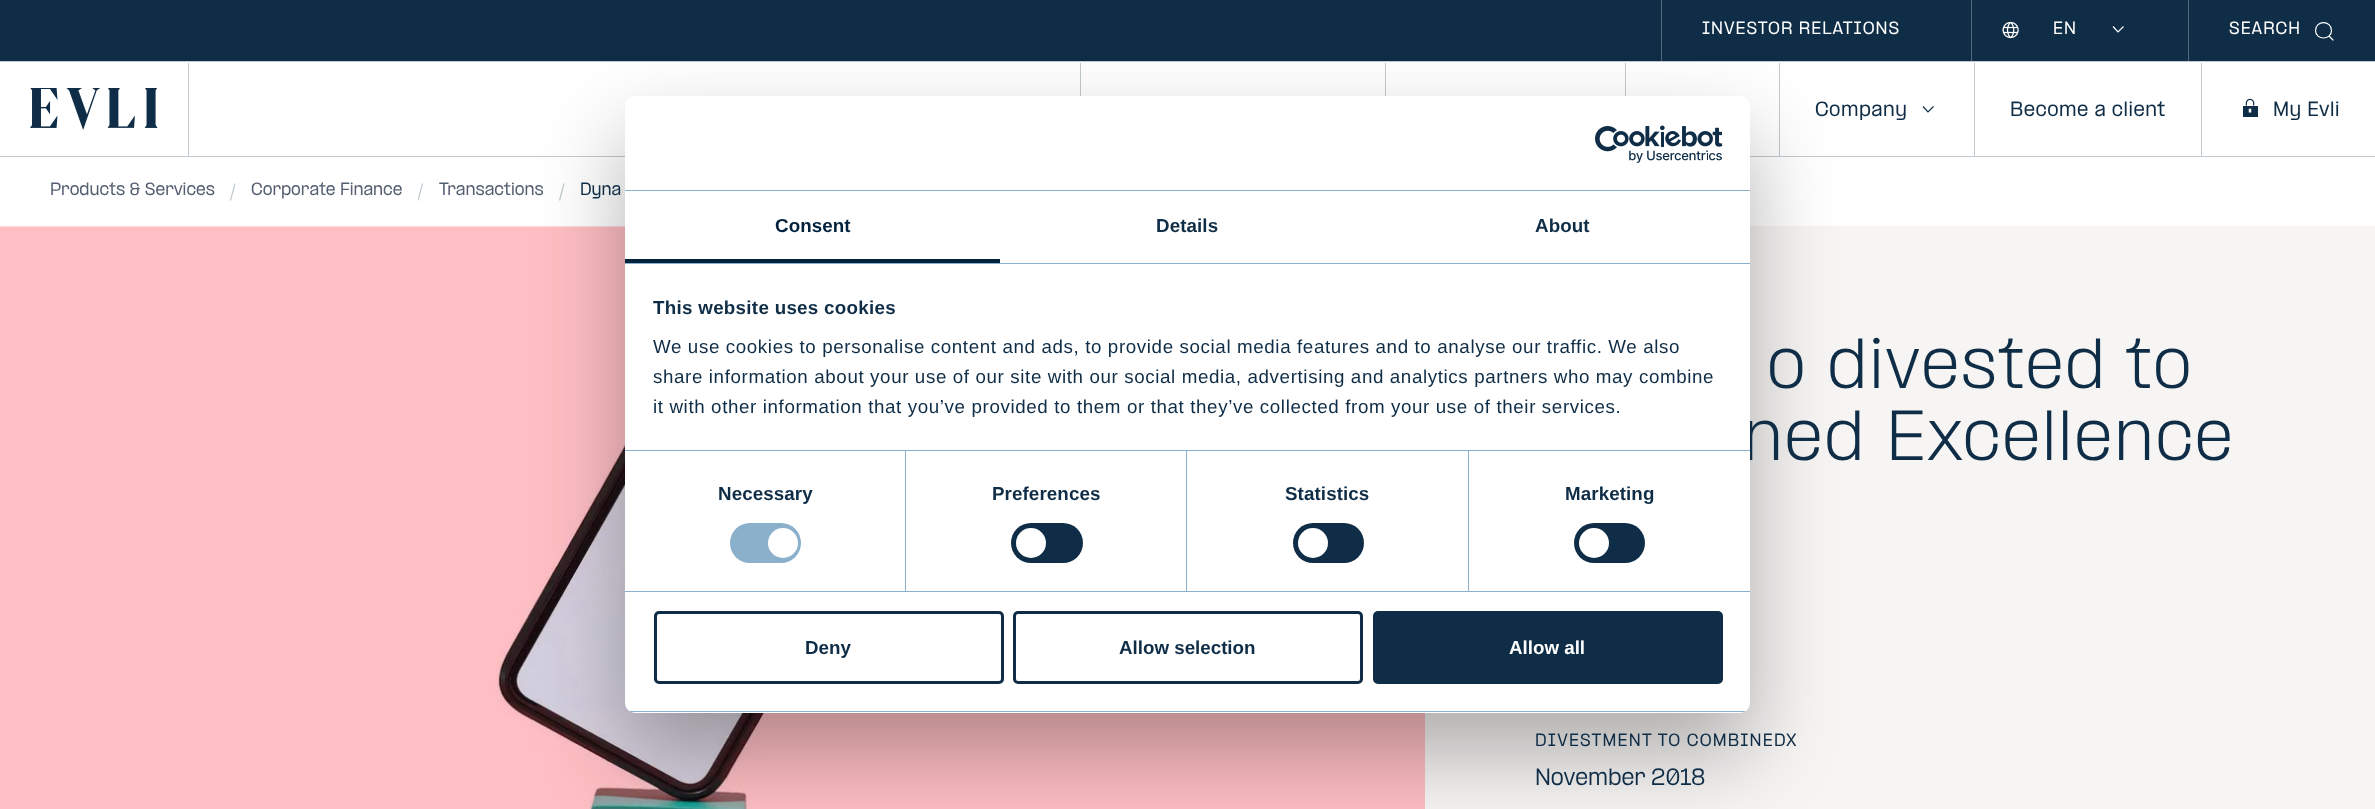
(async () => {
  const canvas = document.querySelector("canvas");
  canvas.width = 2375;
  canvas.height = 809;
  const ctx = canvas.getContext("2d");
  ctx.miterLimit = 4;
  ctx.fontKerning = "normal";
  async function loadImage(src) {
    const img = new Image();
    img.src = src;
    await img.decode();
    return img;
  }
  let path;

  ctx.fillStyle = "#ffffff";
  ctx.fillRect(0, 0, 2375, 809);
  ctx.fillStyle = "#0f2d46";
  ctx.fillRect(0, 0, 2375, 61);
  ctx.fillStyle = "#516979";
  ctx.fillRect(1661, 0, 1, 61);
  ctx.drawImage(await loadImage("img/1.png"), 2002, 21, 17, 18);
  ctx.fillRect(1971, 0, 1, 61);
  path = new Path2D("M2123.5 26.5L2118 32L2113 26.5");
  ctx.strokeStyle = "#ffffff";
  ctx.lineWidth = 1.2;
  ctx.stroke(path);
  ctx.fillRect(2188, 0, 1, 61);
  path = new Path2D("M2333 40L2329 36M2331.5 30.5C2331.5 40.5 2315.5 40.5 2315.5 30.5C2315.5 20 2331.5 20 2331.5 30.5Z");
  ctx.lineCap = "square";
  ctx.stroke(path);
  for (const [x, y, w, h, color] of [
    [0, 61, 2375, 1, "#c0c9cf"],
    [0, 156, 2375, 1, "#c0c9cf"],
    [188, 63, 1, 93, "#c0c9cf"],
  ]) {
    ctx.fillStyle = color;
    ctx.fillRect(x, y, w, h);
  }
  ctx.drawImage(await loadImage("img/2.png"), 30, 88, 128, 42);
  for (const [x, y, w, h, color] of [
    [1080, 63, 1, 33, "#c0c9cf"],
    [1385, 63, 1, 33, "#c0c9cf"],
    [1625, 63, 1, 33, "#c0c9cf"],
    [1779, 63, 1, 93, "#c0c9cf"],
  ]) {
    ctx.fillStyle = color;
    ctx.fillRect(x, y, w, h);
  }
  path = new Path2D("M1933.5 106.5L1928 112L1923 106.5");
  ctx.strokeStyle = "#0f2d46";
  ctx.lineCap = "butt";
  ctx.stroke(path);
  ctx.fillRect(1974, 63, 1, 93);
  ctx.fillRect(2201, 63, 1, 93);
  ctx.drawImage(await loadImage("img/3.png"), 2243, 98, 15, 19);
  path = new Path2D("M235 183.5L230.5 200.5");
  ctx.strokeStyle = "#c0c9cf";
  ctx.stroke(path);
  ctx.save();
  ctx.beginPath();
  ctx.rect(418, 183, 6, 18);
  ctx.clip();
  path = new Path2D("M422.5 183.5L418 200.5");
  ctx.stroke(path);
  ctx.restore();
  path = new Path2D("M564 183.5L559.5 200.5");
  ctx.stroke(path);
  ctx.drawImage(await loadImage("img/4.png"), 0, 226, 1425, 583);
  ctx.fillStyle = "#f7f5f4";
  ctx.fillRect(1425, 226, 950, 583);
  ctx.fillStyle = "rgba(0, 0, 0, 0.3)";
  ctx.filter = "blur(42.5px)";
  ctx.beginPath();
  ctx.roundRect(625, 136, 1125, 617, 10);
  ctx.fill();
  ctx.filter = "none";
  ctx.letterSpacing = "1px";
  ctx.font = "500 15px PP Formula";
  ctx.fillStyle = "#ffffff";
  for (const [text, x, y] of [
    ["INVESTOR RELATIONS", 1702, 34],
    ["EN", 2053, 34],
    ["SEARCH", 2229, 34],
  ]) {
    ctx.fillText(text, x, y);
  }
  ctx.letterSpacing = "0.5px";
  ctx.font = "500 17.5px PP Formula";
  ctx.fillStyle = "#0f2d46";
  for (const [text, x, y] of [
    ["Company", 1815, 116],
    ["Become a client", 2010, 116],
    ["My Evli", 2273, 116],
  ]) {
    ctx.fillText(text, x, y);
  }
  ctx.letterSpacing = "0px";
  ctx.font = "500 15px PP Formula";
  ctx.fillStyle = "#545f71";
  for (const [text, x, y] of [
    ["Products & Services", 50, 195],
    ["Corporate Finance", 251, 195],
    ["Transactions", 439, 195],
  ]) {
    ctx.fillText(text, x, y);
  }
  ctx.fillStyle = "#0f2d46";
  ctx.fillText("Dyna", 580, 195);
  ctx.letterSpacing = "1.75px";
  ctx.font = "300 60px PP Formula";
  ctx.fillText("o divested to", 1767, 388);
  ctx.fillText("ned Excellence", 1743, 460);
  ctx.letterSpacing = "1.2px";
  ctx.font = "500 15px PP Formula";
  ctx.fillText("DIVESTMENT TO COMBINEDX", 1535, 746);
  ctx.letterSpacing = "0px";
  ctx.font = "20px PP Formula";
  ctx.fillText("November 2018", 1535, 785);
  ctx.fillStyle = "#ffffff";
  ctx.beginPath();
  ctx.roundRect(625, 96, 1125, 617, 10);
  ctx.fill();
  ctx.fillStyle = "#8ab0cc";
  ctx.fillRect(625, 190, 1125, 1);
  ctx.drawImage(await loadImage("img/5.png"), 1595, 125, 128, 38);
  ctx.fillRect(625, 263, 1125, 1);
  ctx.fillStyle = "#00223d";
  ctx.fillRect(625, 259, 375, 4);
  ctx.letterSpacing = "0.1px";
  ctx.font = "bold 18.75px Liberation Sans";
  ctx.fillText("Consent", 775, 232);
  ctx.fillStyle = "#0f2d46";
  ctx.fillText("Details", 1156, 232);
  ctx.fillText("About", 1535, 232);
  ctx.fillStyle = "#8ab0cc";
  ctx.fillRect(625, 450, 1125, 1);
  ctx.letterSpacing = "0.3px";
  ctx.fillStyle = "#0f2d46";
  ctx.fillText("This website uses cookies", 653, 314);
  ctx.letterSpacing = "0.62px";
  ctx.font = "18.75px Liberation Sans";
  for (const [text, x, y] of [
    ["We use cookies to personalise content and ads, to provide social media features and to analyse our traffic. We also", 653, 353],
    ["share information about your use of our site with our social media, advertising and analytics partners who may combine", 653, 383],
    ["it with other information that you’ve provided to them or that they’ve collected from your use of their services.", 653, 413],
  ]) {
    ctx.fillText(text, x, y);
  }
  ctx.fillStyle = "#8ab0cc";
  ctx.fillRect(625, 591, 1125, 1);
  ctx.fillRect(905, 451, 1, 140);
  ctx.letterSpacing = "0.1px";
  ctx.font = "bold 18.75px Liberation Sans";
  ctx.fillStyle = "#0f2d46";
  ctx.fillText("Necessary", 718, 500);
  ctx.fillStyle = "#8ab0cc";
  ctx.beginPath();
  ctx.roundRect(730, 523, 71, 40, 20);
  ctx.fill();
  ctx.fillStyle = "#ffffff";
  ctx.beginPath();
  ctx.arc(783, 543, 15, 0, Math.PI * 2);
  ctx.fill();
  ctx.fillStyle = "#8ab0cc";
  ctx.fillRect(1186, 451, 1, 140);
  ctx.fillStyle = "#0f2d46";
  ctx.fillText("Preferences", 992, 500);
  ctx.beginPath();
  ctx.roundRect(1011, 523, 72, 40, 20);
  ctx.fill();
  ctx.fillStyle = "#ffffff";
  ctx.beginPath();
  ctx.arc(1031, 543, 15, 0, Math.PI * 2);
  ctx.fill();
  ctx.fillStyle = "#8ab0cc";
  ctx.fillRect(1468, 451, 1, 140);
  ctx.fillStyle = "#0f2d46";
  ctx.fillText("Statistics", 1285, 500);
  ctx.beginPath();
  ctx.roundRect(1293, 523, 71, 40, 20);
  ctx.fill();
  ctx.fillStyle = "#ffffff";
  ctx.beginPath();
  ctx.arc(1313, 543, 15, 0, Math.PI * 2);
  ctx.fill();
  ctx.fillStyle = "#0f2d46";
  ctx.fillText("Marketing", 1565, 500);
  ctx.beginPath();
  ctx.roundRect(1574, 523, 71, 40, 20);
  ctx.fill();
  ctx.fillStyle = "#ffffff";
  ctx.beginPath();
  ctx.arc(1594, 543, 15, 0, Math.PI * 2);
  ctx.fill();
  ctx.save();
  ctx.beginPath();
  ctx.roundRect(625, 96, 1125, 617, 10);
  ctx.clip();
  ctx.fillStyle = "#8ab0cc";
  ctx.fillRect(625, 711, 1125, 1);
  ctx.restore();
  ctx.beginPath();
  ctx.roundRect(655.5, 612.5, 347, 70, 3.5);
  ctx.strokeStyle = "#0f2d46";
  ctx.lineWidth = 3;
  ctx.stroke();
  ctx.letterSpacing = "0px";
  ctx.fillStyle = "#0f2d46";
  ctx.fillText("Deny", 805, 654);
  ctx.beginPath();
  ctx.roundRect(1014.5, 612.5, 347, 70, 3.5);
  ctx.stroke();
  ctx.fillText("Allow selection", 1119, 654);
  ctx.beginPath();
  ctx.roundRect(1374.5, 612.5, 347, 70, 3.5);
  ctx.fill();
  ctx.stroke();
  ctx.fillStyle = "#ffffff";
  ctx.fillText("Allow all", 1509, 654);
})();
